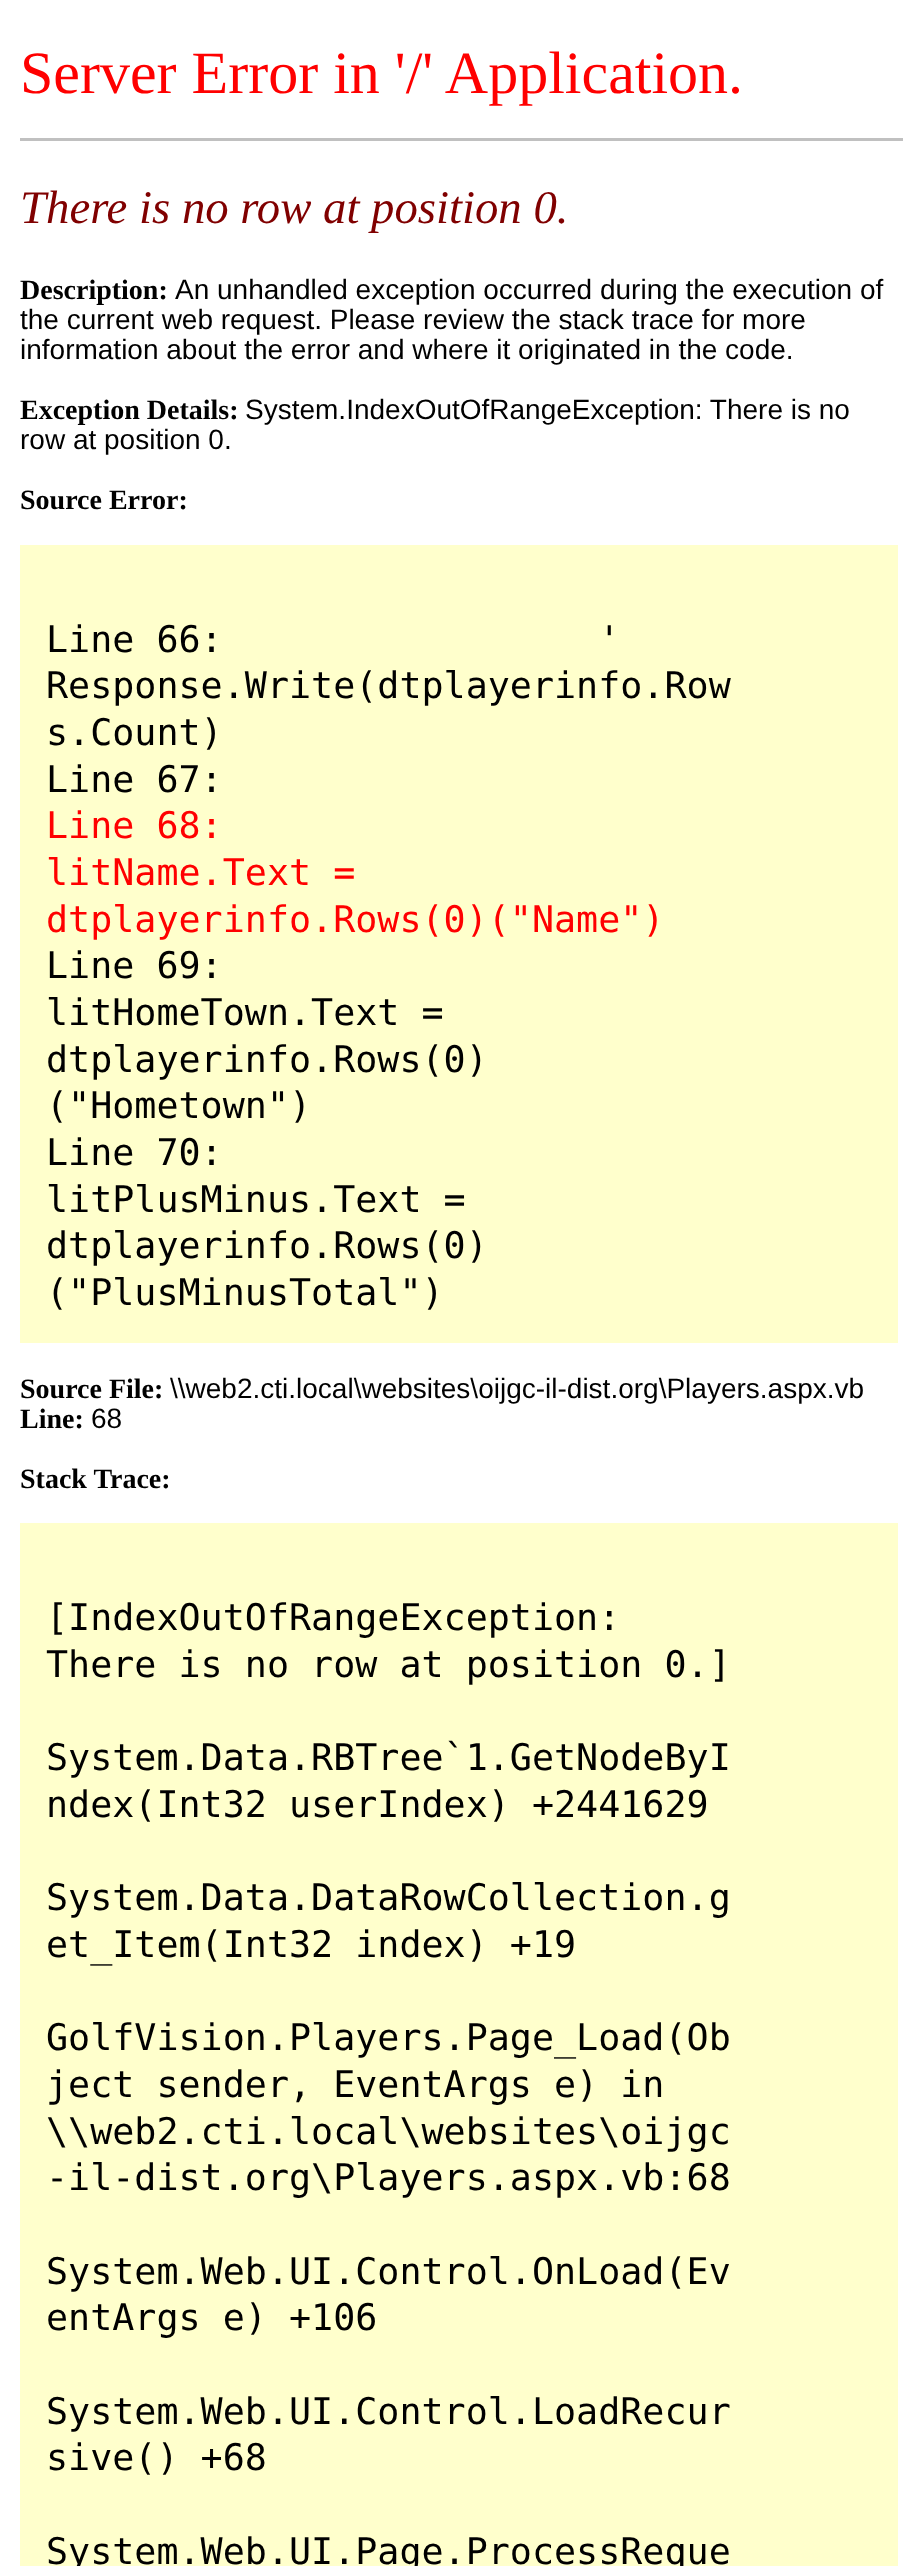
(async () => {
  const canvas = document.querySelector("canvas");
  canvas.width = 916;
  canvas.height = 2566;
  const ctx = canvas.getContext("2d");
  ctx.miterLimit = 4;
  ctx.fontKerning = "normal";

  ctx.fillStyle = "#ffffff";
  ctx.fillRect(0, 0, 916, 2566);
  for (const [x, y, w, h, color] of [
    [20, 138, 883, 3, "#c0c0c0"],
    [20, 545, 878, 798, "#ffffcc"],
    [20, 1523, 878, 1043, "#ffffcc"],
  ]) {
    ctx.fillStyle = color;
    ctx.fillRect(x, y, w, h);
  }
  ctx.font = "60px Liberation Serif";
  ctx.fillStyle = "#ff0000";
  ctx.fillText("Server Error in '/' Application.", 20, 93);
  ctx.font = "italic 46.75px Liberation Serif";
  ctx.fillStyle = "#800000";
  ctx.fillText("There is no row at position 0.", 20, 223);
  ctx.font = "bold 28px Liberation Serif";
  ctx.fillStyle = "#000000";
  ctx.fillText("Description:", 20, 299);
  ctx.font = "28px Liberation Sans";
  for (const [text, x, y] of [
    ["An unhandled exception occurred during the execution of", 175, 299],
    ["the current web request. Please review the stack trace for more", 20, 329],
    ["information about the error and where it originated in the code.", 20, 359],
  ]) {
    ctx.fillText(text, x, y);
  }
  ctx.font = "bold 28px Liberation Serif";
  ctx.fillText("Exception Details:", 20, 419);
  ctx.font = "28px Liberation Sans";
  ctx.fillText("System.IndexOutOfRangeException: There is no", 245, 419);
  ctx.fillText("row at position 0.", 20, 449);
  ctx.font = "bold 28px Liberation Serif";
  ctx.fillText("Source Error:", 20, 509);
  ctx.font = "36.7px DejaVu Sans Mono";
  for (const [text, x, y] of [
    ["Line 66:                 '", 46, 652],
    ["Response.Write(dtplayerinfo.Row", 46, 698],
    ["s.Count)", 46, 745],
    ["Line 67:", 46, 792],
  ]) {
    ctx.fillText(text, x, y);
  }
  ctx.fillStyle = "#ff0000";
  for (const [text, x, y] of [
    ["Line 68:", 46, 838],
    ["litName.Text =", 46, 885],
    ["dtplayerinfo.Rows(0)(\"Name\")", 46, 932],
  ]) {
    ctx.fillText(text, x, y);
  }
  ctx.fillStyle = "#000000";
  for (const [text, x, y] of [
    ["Line 69:", 46, 978],
    ["litHomeTown.Text =", 46, 1025],
    ["dtplayerinfo.Rows(0)", 46, 1072],
    ["(\"Hometown\")", 46, 1118],
    ["Line 70:", 46, 1165],
    ["litPlusMinus.Text =", 46, 1212],
    ["dtplayerinfo.Rows(0)", 46, 1258],
    ["(\"PlusMinusTotal\")", 46, 1305],
  ]) {
    ctx.fillText(text, x, y);
  }
  ctx.font = "bold 28px Liberation Serif";
  ctx.fillText("Source File:", 20, 1398);
  ctx.font = "28px Liberation Sans";
  ctx.fillText("\\\\web2.cti.local\\websites\\oijgc-il-dist.org\\Players.aspx.vb", 170, 1398);
  ctx.font = "bold 28px Liberation Serif";
  ctx.fillText("Line:", 20, 1428);
  ctx.font = "28px Liberation Sans";
  ctx.fillText("68", 91, 1428);
  ctx.font = "bold 28px Liberation Serif";
  ctx.fillText("Stack Trace:", 20, 1488);
  ctx.font = "36.7px DejaVu Sans Mono";
  for (const [text, x, y] of [
    ["[IndexOutOfRangeException:", 46, 1630],
    ["There is no row at position 0.]", 46, 1677],
    ["System.Data.RBTree`1.GetNodeByI", 46, 1770],
    ["ndex(Int32 userIndex) +2441629", 46, 1817],
    ["System.Data.DataRowCollection.g", 46, 1910],
    ["et_Item(Int32 index) +19", 46, 1957],
    ["GolfVision.Players.Page_Load(Ob", 46, 2050],
    ["ject sender, EventArgs e) in", 46, 2097],
    ["\\\\web2.cti.local\\websites\\oijgc", 46, 2144],
    ["-il-dist.org\\Players.aspx.vb:68", 46, 2190],
    ["System.Web.UI.Control.OnLoad(Ev", 46, 2284],
    ["entArgs e) +106", 46, 2330],
    ["System.Web.UI.Control.LoadRecur", 46, 2424],
    ["sive() +68", 46, 2470],
    ["System.Web.UI.Page.ProcessReque", 46, 2564],
  ]) {
    ctx.fillText(text, x, y);
  }
})();
